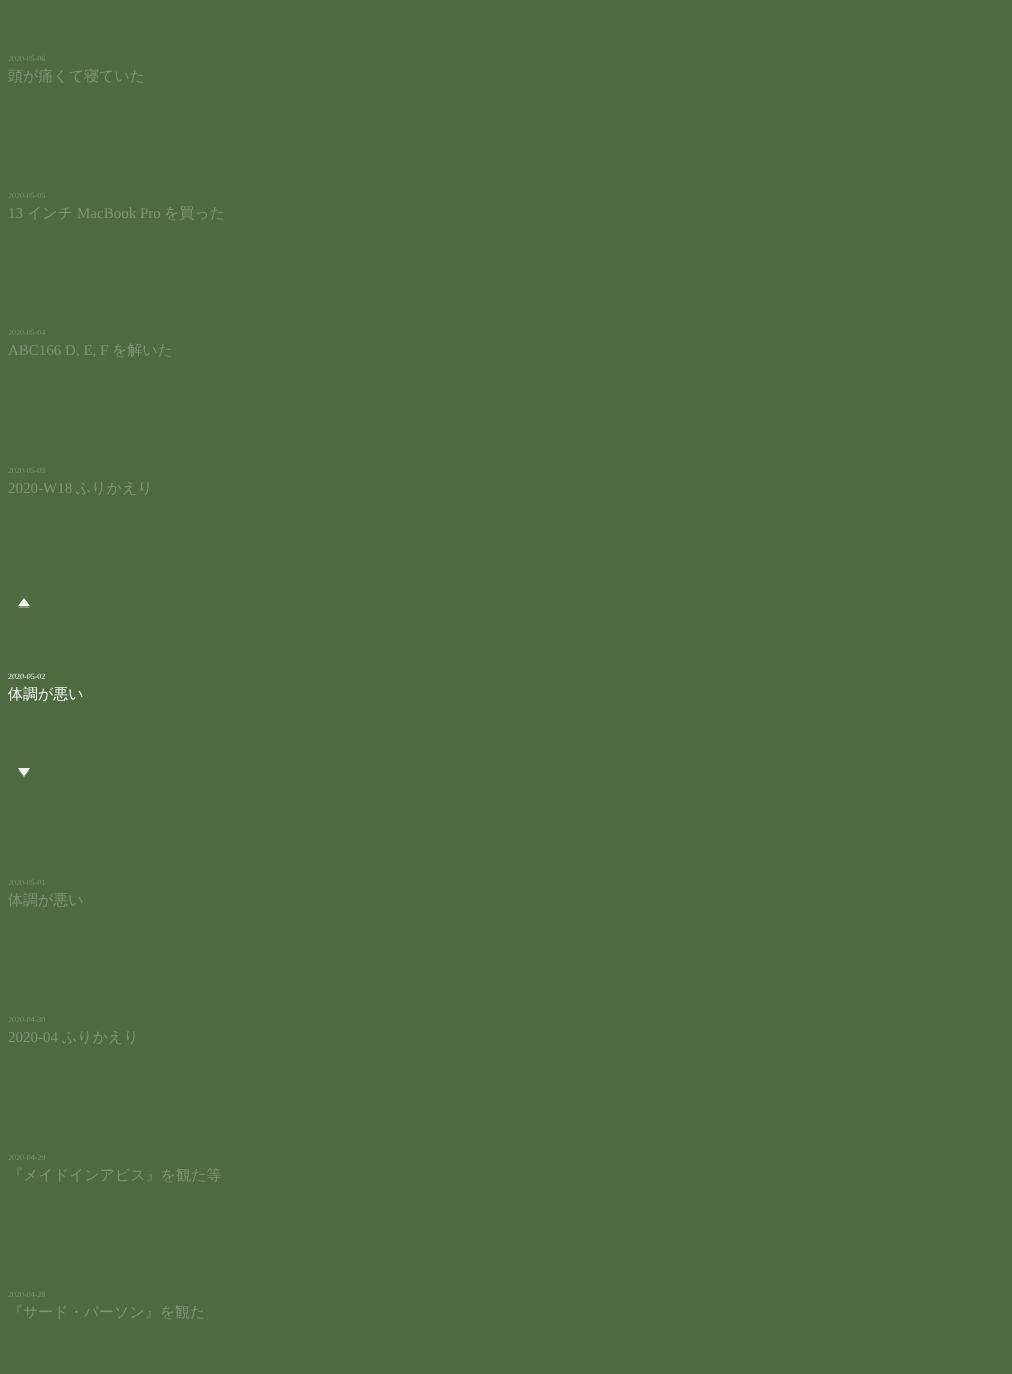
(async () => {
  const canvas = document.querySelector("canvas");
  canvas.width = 1012;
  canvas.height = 1374;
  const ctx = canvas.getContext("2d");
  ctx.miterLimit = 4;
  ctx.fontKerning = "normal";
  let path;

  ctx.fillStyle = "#4e6a41";
  ctx.fillRect(0, 0, 1012, 1374);
  ctx.fillStyle = "#83977a";
  path = new Path2D("M30 608H18L24 600Z");
  ctx.fill(path);
  ctx.fillStyle = "#f4f7f2";
  path = new Path2D("M30 606H18L24 598Z");
  ctx.fill(path);
  ctx.fillStyle = "#83977a";
  path = new Path2D("M18 770H30L24 778Z");
  ctx.fill(path);
  ctx.fillStyle = "#f4f7f2";
  path = new Path2D("M18 768H30L24 776Z");
  ctx.fill(path);
  ctx.font = "8px Liberation Serif";
  ctx.fillStyle = "#809476";
  ctx.fillText("2020-05-06", 8, 61);
  ctx.font = "500 15px WenQuanYi Zen Hei";
  ctx.fillText("頭が痛くて寝ていた", 8, 81);
  ctx.font = "8px Liberation Serif";
  ctx.fillText("2020-05-05", 8, 198);
  ctx.font = "15px Liberation Serif";
  ctx.fillText("13", 8, 218);
  ctx.font = "500 15px WenQuanYi Zen Hei";
  ctx.fillText("インチ", 27, 218);
  ctx.font = "15px Liberation Serif";
  ctx.fillText("MacBook Pro", 77, 218);
  ctx.font = "500 15px WenQuanYi Zen Hei";
  ctx.fillText("を買った", 164, 218);
  ctx.font = "8px Liberation Serif";
  ctx.fillText("2020-05-04", 8, 335);
  ctx.font = "15px Liberation Serif";
  ctx.fillText("ABC166 D, E, F", 8, 355);
  ctx.font = "500 15px WenQuanYi Zen Hei";
  ctx.fillText("を解いた", 112, 355);
  ctx.font = "8px Liberation Serif";
  ctx.fillText("2020-05-03", 8, 473);
  ctx.font = "15px Liberation Serif";
  ctx.fillText("2020-W18", 8, 493);
  ctx.font = "500 15px WenQuanYi Zen Hei";
  ctx.fillText("ふりかえり", 76, 493);
  ctx.font = "8px Liberation Serif";
  ctx.fillStyle = "#f4f7f2";
  ctx.fillText("2020-05-02", 8, 679);
  ctx.font = "500 15px WenQuanYi Zen Hei";
  ctx.fillText("体調が悪い", 8, 699);
  ctx.font = "8px Liberation Serif";
  ctx.fillStyle = "#809476";
  ctx.fillText("2020-05-01", 8, 885);
  ctx.font = "500 15px WenQuanYi Zen Hei";
  ctx.fillText("体調が悪い", 8, 905);
  ctx.font = "8px Liberation Serif";
  ctx.fillText("2020-04-30", 8, 1022);
  ctx.font = "15px Liberation Serif";
  ctx.fillText("2020-04", 8, 1042);
  ctx.font = "500 15px WenQuanYi Zen Hei";
  ctx.fillText("ふりかえり", 62, 1042);
  ctx.font = "8px Liberation Serif";
  ctx.fillText("2020-04-29", 8, 1160);
  ctx.font = "500 15px WenQuanYi Zen Hei";
  ctx.fillText("『メイドインアビス』を観た等", 8, 1180);
  ctx.font = "8px Liberation Serif";
  ctx.fillText("2020-04-28", 8, 1297);
  ctx.font = "500 15px WenQuanYi Zen Hei";
  ctx.fillText("『サード・パーソン』を観た", 8, 1317);
})();
